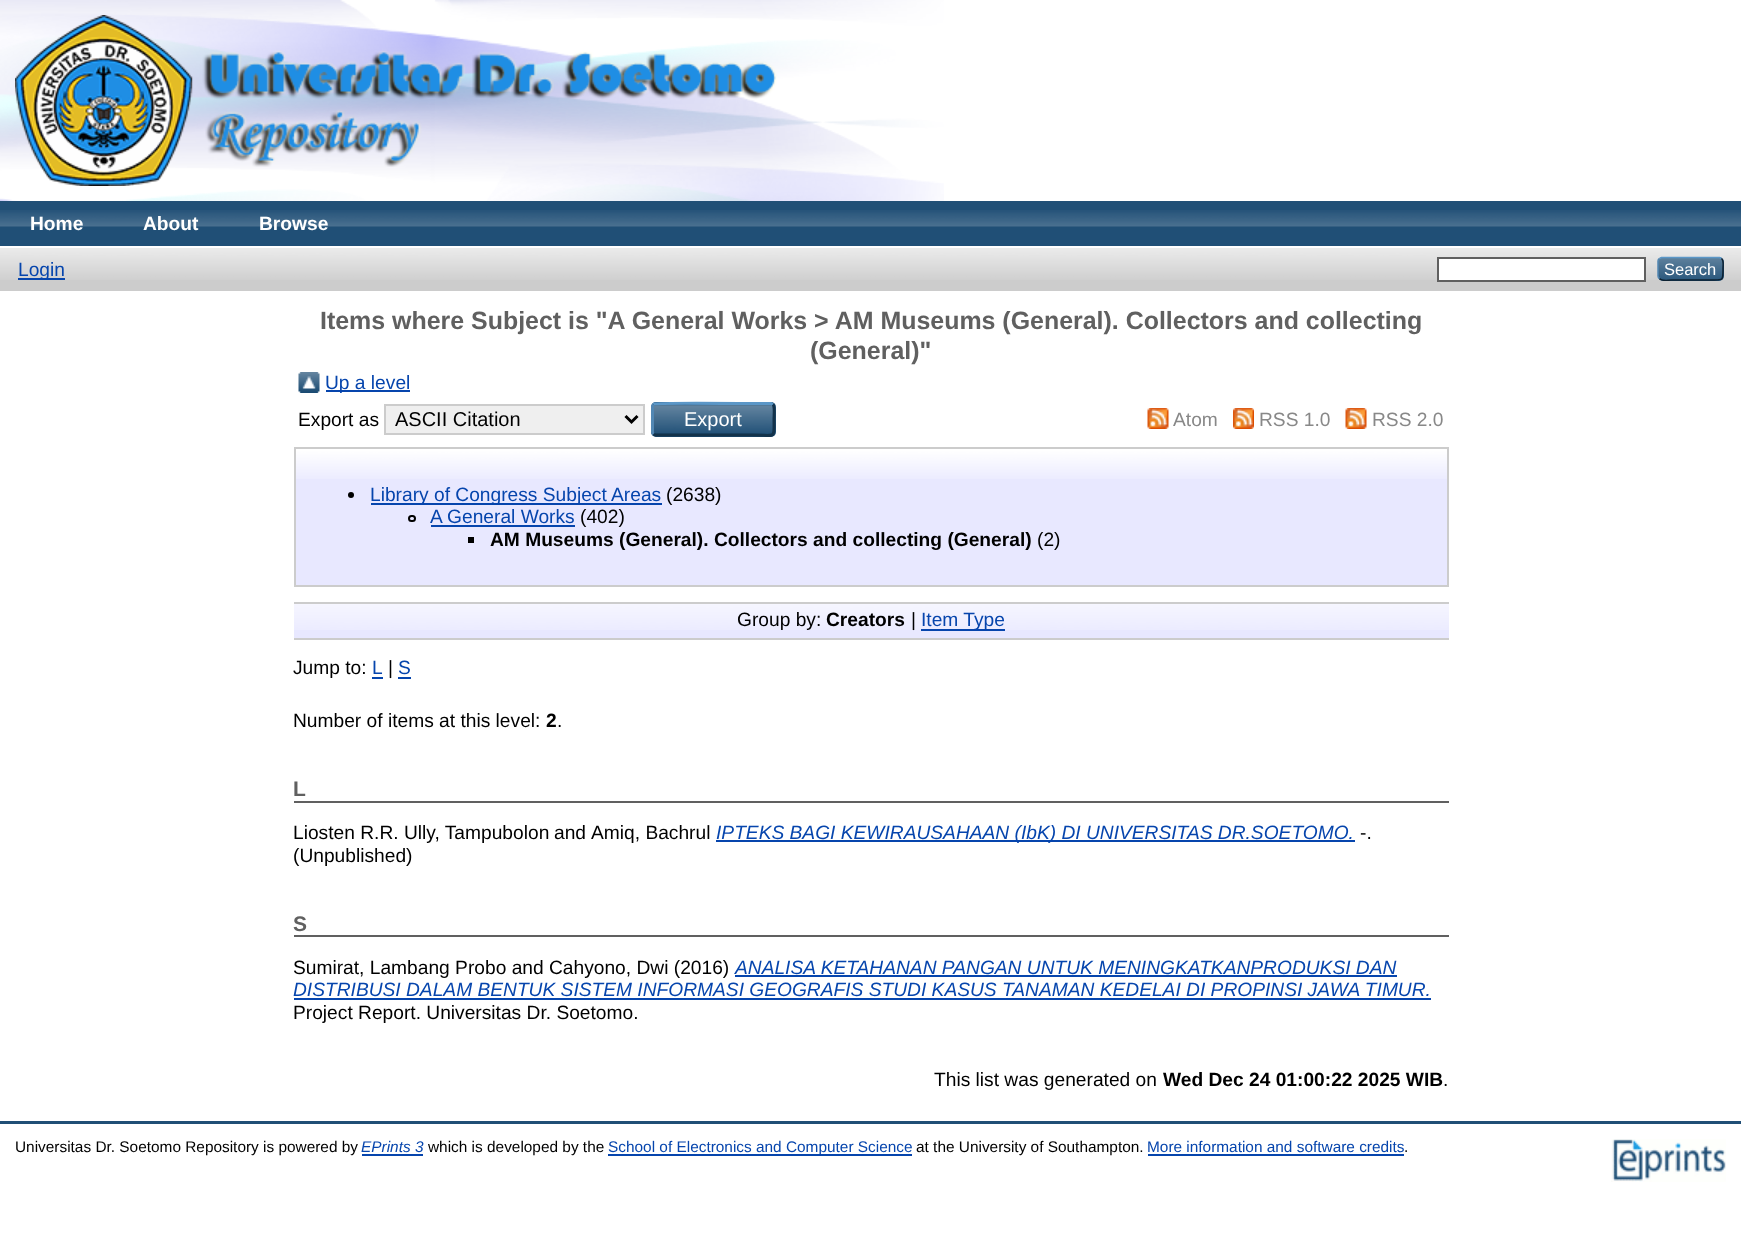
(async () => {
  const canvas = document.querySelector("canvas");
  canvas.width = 1741;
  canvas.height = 1250;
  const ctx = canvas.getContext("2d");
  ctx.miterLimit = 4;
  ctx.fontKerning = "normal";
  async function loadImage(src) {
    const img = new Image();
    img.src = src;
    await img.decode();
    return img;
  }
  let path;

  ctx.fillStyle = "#ffffff";
  ctx.fillRect(0, 0, 1741, 1250);
  ctx.drawImage(await loadImage("img/1.png"), 0, 0, 944, 201);
  ctx.drawImage(await loadImage("img/2.png"), 15, 15, 762, 171);
  ctx.fillStyle = "#204f76";
  ctx.fillRect(0, 201, 1741, 45);
  ctx.drawImage(await loadImage("img/3.png"), 0, 210, 1741, 17);
  ctx.fillStyle = "#cccccc";
  ctx.fillRect(0, 248, 1741, 43);
  ctx.drawImage(await loadImage("img/4.png"), 0, 248, 1741, 32);
  ctx.fillStyle = "#0645ad";
  ctx.fillRect(18, 278, 47, 2);
  ctx.fillStyle = "#ffffff";
  ctx.beginPath();
  ctx.rect(1438, 258, 207, 23);
  ctx.fill();
  ctx.strokeStyle = "#606060";
  ctx.lineWidth = 2;
  ctx.stroke();
  ctx.fillStyle = "#1f4f76";
  ctx.beginPath();
  ctx.roundRect(1658, 257, 66, 24, 5);
  ctx.fill();
  ctx.drawImage(await loadImage("img/5.png"), 1658, 257, 66, 23);
  path = new Path2D("M1659.5 258.5L1661.5 257.5H1719.5L1721.5 258.5");
  ctx.strokeStyle = "#5b97c7";
  ctx.lineWidth = 1.5;
  ctx.stroke(path);
  path = new Path2D("M1721.5 258.5C1724 260.5 1723 265.5 1723 268.5C1723 281.5 1723.5 280 1709.5 280H1671.5C1671 280 1662 281.5 1659.5 278.5");
  ctx.strokeStyle = "#0d2131";
  ctx.stroke(path);
  path = new Path2D("M1659.5 278.5C1658.5 278 1658 277 1658 276V261C1658 260 1658.5 259 1659.5 258.5");
  ctx.strokeStyle = "#5287b3";
  ctx.stroke(path);
  ctx.drawImage(await loadImage("img/6.png"), 298, 372, 22, 21);
  ctx.fillStyle = "#0645ad";
  ctx.fillRect(326, 390, 84, 2);
  ctx.fillStyle = "#efefef";
  ctx.beginPath();
  ctx.rect(385, 405, 259, 29);
  ctx.fill();
  ctx.strokeStyle = "#cccccc";
  ctx.lineWidth = 2;
  ctx.stroke();
  path = new Path2D("M625.5 416L631.5 422L637.5 416");
  ctx.strokeStyle = "#000000";
  ctx.lineWidth = 3;
  ctx.stroke(path);
  ctx.fillStyle = "#1f4f76";
  ctx.beginPath();
  ctx.roundRect(651, 402, 125, 35, 5);
  ctx.fill();
  ctx.drawImage(await loadImage("img/7.png"), 651, 404, 125, 29);
  path = new Path2D("M653.5 404.5L654 404C656 402.5 741.5 403.5 752 403.5H771L773 404.5");
  ctx.strokeStyle = "#5b97c7";
  ctx.stroke(path);
  path = new Path2D("M773 404.5C775 406.5 774 416.5 774 419C774 440 776.5 435 752 435H655.5L653.5 434");
  ctx.strokeStyle = "#13324a";
  ctx.stroke(path);
  path = new Path2D("M653.5 434C653 433.5 652.5 433 652.5 432V406.5C652.5 405.5 653 405 653.5 404.5");
  ctx.strokeStyle = "#5287b3";
  ctx.stroke(path);
  ctx.drawImage(await loadImage("img/8.png"), 1147, 408, 22, 21);
  ctx.drawImage(await loadImage("img/9.png"), 1233, 408, 21, 21);
  ctx.drawImage(await loadImage("img/8.png"), 1345, 408, 22, 21);
  ctx.fillStyle = "#e8e8ff";
  ctx.fillRect(296, 450, 1151, 135);
  ctx.drawImage(await loadImage("img/10.png"), 296, 449, 1151, 30);
  ctx.strokeStyle = "#cccccc";
  ctx.lineWidth = 2;
  ctx.strokeRect(295, 448, 1153, 138);
  ctx.fillStyle = "#000000";
  ctx.beginPath();
  ctx.arc(351, 495, 3, 0, Math.PI * 2);
  ctx.fill();
  ctx.fillStyle = "#0645ad";
  ctx.fillRect(371, 503, 291, 2);
  ctx.beginPath();
  ctx.roundRect(409, 516, 6, 5, 2.5);
  ctx.strokeStyle = "#000000";
  ctx.stroke();
  for (const [x, y, w, h, color] of [
    [431, 525, 144, 2, "#0645ad"],
    [468, 537, 6, 6, "#000000"],
    [294, 604, 1155, 34, "#e8e8ff"],
  ]) {
    ctx.fillStyle = color;
    ctx.fillRect(x, y, w, h);
  }
  ctx.drawImage(await loadImage("img/11.png"), 294, 604, 1155, 26);
  for (const [x, y, w, h, color] of [
    [294, 602, 1155, 2, "#cccccc"],
    [294, 638, 1155, 2, "#cccccc"],
    [921, 629, 84, 2, "#0645ad"],
    [372, 677, 11, 2, "#0645ad"],
    [398, 677, 13, 2, "#0645ad"],
    [294, 801, 1155, 2, "#606060"],
    [716, 840, 639, 2, "#0645ad"],
    [294, 935, 1155, 2, "#606060"],
    [735, 975, 662, 2, "#0645ad"],
    [294, 998, 1137, 2, "#0645ad"],
    [0, 1121, 1741, 3, "#204f76"],
    [362, 1154, 61, 2, "#0645ad"],
    [608, 1154, 304, 2, "#0645ad"],
    [1148, 1154, 256, 2, "#0645ad"],
  ]) {
    ctx.fillStyle = color;
    ctx.fillRect(x, y, w, h);
  }
  ctx.drawImage(await loadImage("img/12.png"), 1611, 1139, 115, 43);
  ctx.font = "bold 19.2px Liberation Sans";
  ctx.fillStyle = "#ffffff";
  for (const [text, x, y] of [
    ["Home", 30, 230],
    ["About", 143, 230],
    ["Browse", 259, 230],
  ]) {
    ctx.fillText(text, x, y);
  }
  ctx.font = "19.2px Liberation Sans";
  ctx.fillStyle = "#0645ad";
  ctx.fillText("Login", 18, 276);
  ctx.font = "16.5px Liberation Sans";
  ctx.fillStyle = "#ffffff";
  ctx.fillText("Search", 1664, 275);
  ctx.font = "bold 24.95px Liberation Sans";
  ctx.fillStyle = "#606060";
  ctx.fillText("Items where Subject is \"A General Works > AM Museums (General). Collectors and collecting", 320, 329);
  ctx.fillText("(General)\"", 810, 359);
  ctx.font = "19.2px Liberation Sans";
  ctx.fillStyle = "#0645ad";
  ctx.fillText("Up a level", 325, 389);
  ctx.fillStyle = "#000000";
  ctx.fillText("Export as", 298, 426);
  ctx.font = "20px Liberation Sans";
  ctx.fillText("ASCII Citation", 395, 426);
  ctx.fillStyle = "#ffffff";
  ctx.fillText("Export", 684, 426);
  ctx.font = "19.2px Liberation Sans";
  ctx.fillStyle = "#888888";
  for (const [text, x, y] of [
    ["Atom", 1173, 426],
    ["RSS 1.0", 1259, 426],
    ["RSS 2.0", 1372, 426],
  ]) {
    ctx.fillText(text, x, y);
  }
  ctx.fillStyle = "#0645ad";
  ctx.fillText("Library of Congress Subject Areas", 370, 501);
  ctx.fillStyle = "#000000";
  ctx.fillText("(2638)", 666, 501);
  ctx.fillStyle = "#0645ad";
  ctx.fillText("A General Works", 430, 523);
  ctx.fillStyle = "#000000";
  ctx.fillText("(402)", 580, 523);
  ctx.font = "bold 19.2px Liberation Sans";
  ctx.fillText("AM Museums (General). Collectors and collecting (General)", 490, 546);
  ctx.font = "19.2px Liberation Sans";
  ctx.fillText("(2)", 1037, 546);
  ctx.fillText("Group by:", 737, 626);
  ctx.font = "bold 19.2px Liberation Sans";
  ctx.fillText("Creators", 826, 626);
  ctx.font = "19.2px Liberation Sans";
  ctx.fillText("|", 911, 626);
  ctx.fillStyle = "#0645ad";
  ctx.fillText("Item Type", 921, 626);
  ctx.fillStyle = "#000000";
  ctx.fillText("Jump to:", 293, 674);
  ctx.fillStyle = "#0645ad";
  ctx.fillText("L", 372, 674);
  ctx.fillStyle = "#000000";
  ctx.fillText("|", 388, 674);
  ctx.fillStyle = "#0645ad";
  ctx.fillText("S", 398, 674);
  ctx.fillStyle = "#000000";
  ctx.fillText("Number of items at this level:", 293, 727);
  ctx.font = "bold 19.2px Liberation Sans";
  ctx.fillText("2", 546, 727);
  ctx.font = "19.2px Liberation Sans";
  ctx.fillText(".", 557, 727);
  ctx.font = "bold 21px Liberation Sans";
  ctx.fillStyle = "#606060";
  ctx.fillText("L", 293, 796);
  ctx.font = "19.2px Liberation Sans";
  ctx.fillStyle = "#000000";
  for (const [text, x, y] of [
    ["Liosten R.R. Ully, Tampubolon", 293, 839],
    ["and", 554, 839],
    ["Amiq, Bachrul", 591, 839],
  ]) {
    ctx.fillText(text, x, y);
  }
  ctx.font = "italic 19.2px Liberation Sans";
  ctx.fillStyle = "#0645ad";
  ctx.fillText("IPTEKS BAGI KEWIRAUSAHAAN (IbK) DI UNIVERSITAS DR.SOETOMO.", 716, 839);
  ctx.font = "19.2px Liberation Sans";
  ctx.fillStyle = "#000000";
  ctx.fillText("-.", 1360, 839);
  ctx.fillText("(Unpublished)", 293, 862);
  ctx.font = "bold 21px Liberation Sans";
  ctx.fillStyle = "#606060";
  ctx.fillText("S", 293, 931);
  ctx.font = "19.2px Liberation Sans";
  ctx.fillStyle = "#000000";
  ctx.fillText("Sumirat, Lambang Probo and Cahyono, Dwi (2016)", 293, 974);
  ctx.font = "italic 19.2px Liberation Sans";
  ctx.fillStyle = "#0645ad";
  ctx.fillText("ANALISA KETAHANAN PANGAN UNTUK MENINGKATKANPRODUKSI DAN", 735, 974);
  ctx.fillText("DISTRIBUSI DALAM BENTUK SISTEM INFORMASI GEOGRAFIS STUDI KASUS TANAMAN KEDELAI DI PROPINSI JAWA TIMUR.", 293, 996);
  ctx.font = "19.2px Liberation Sans";
  ctx.fillStyle = "#000000";
  ctx.fillText("Project Report. Universitas Dr. Soetomo.", 293, 1019);
  ctx.fillText("This list was generated on", 934, 1086);
  ctx.font = "bold 19.2px Liberation Sans";
  ctx.fillText("Wed Dec 24 01:00:22 2025 WIB", 1163, 1086);
  ctx.font = "19.2px Liberation Sans";
  ctx.fillText(".", 1443, 1086);
  ctx.font = "15.4px Liberation Sans";
  ctx.fillText("Universitas Dr. Soetomo Repository is powered by", 15, 1152);
  ctx.font = "italic 15.4px Liberation Sans";
  ctx.fillStyle = "#0645ad";
  ctx.fillText("EPrints 3", 361, 1152);
  ctx.font = "15.4px Liberation Sans";
  ctx.fillStyle = "#000000";
  ctx.fillText("which is developed by the", 428, 1152);
  ctx.fillStyle = "#0645ad";
  ctx.fillText("School of Electronics and Computer Science", 608, 1152);
  ctx.fillStyle = "#000000";
  ctx.fillText("at the University of Southampton.", 916, 1152);
  ctx.fillStyle = "#0645ad";
  ctx.fillText("More information and software credits", 1147, 1152);
  ctx.fillStyle = "#000000";
  ctx.fillText(".", 1404, 1152);
})();
